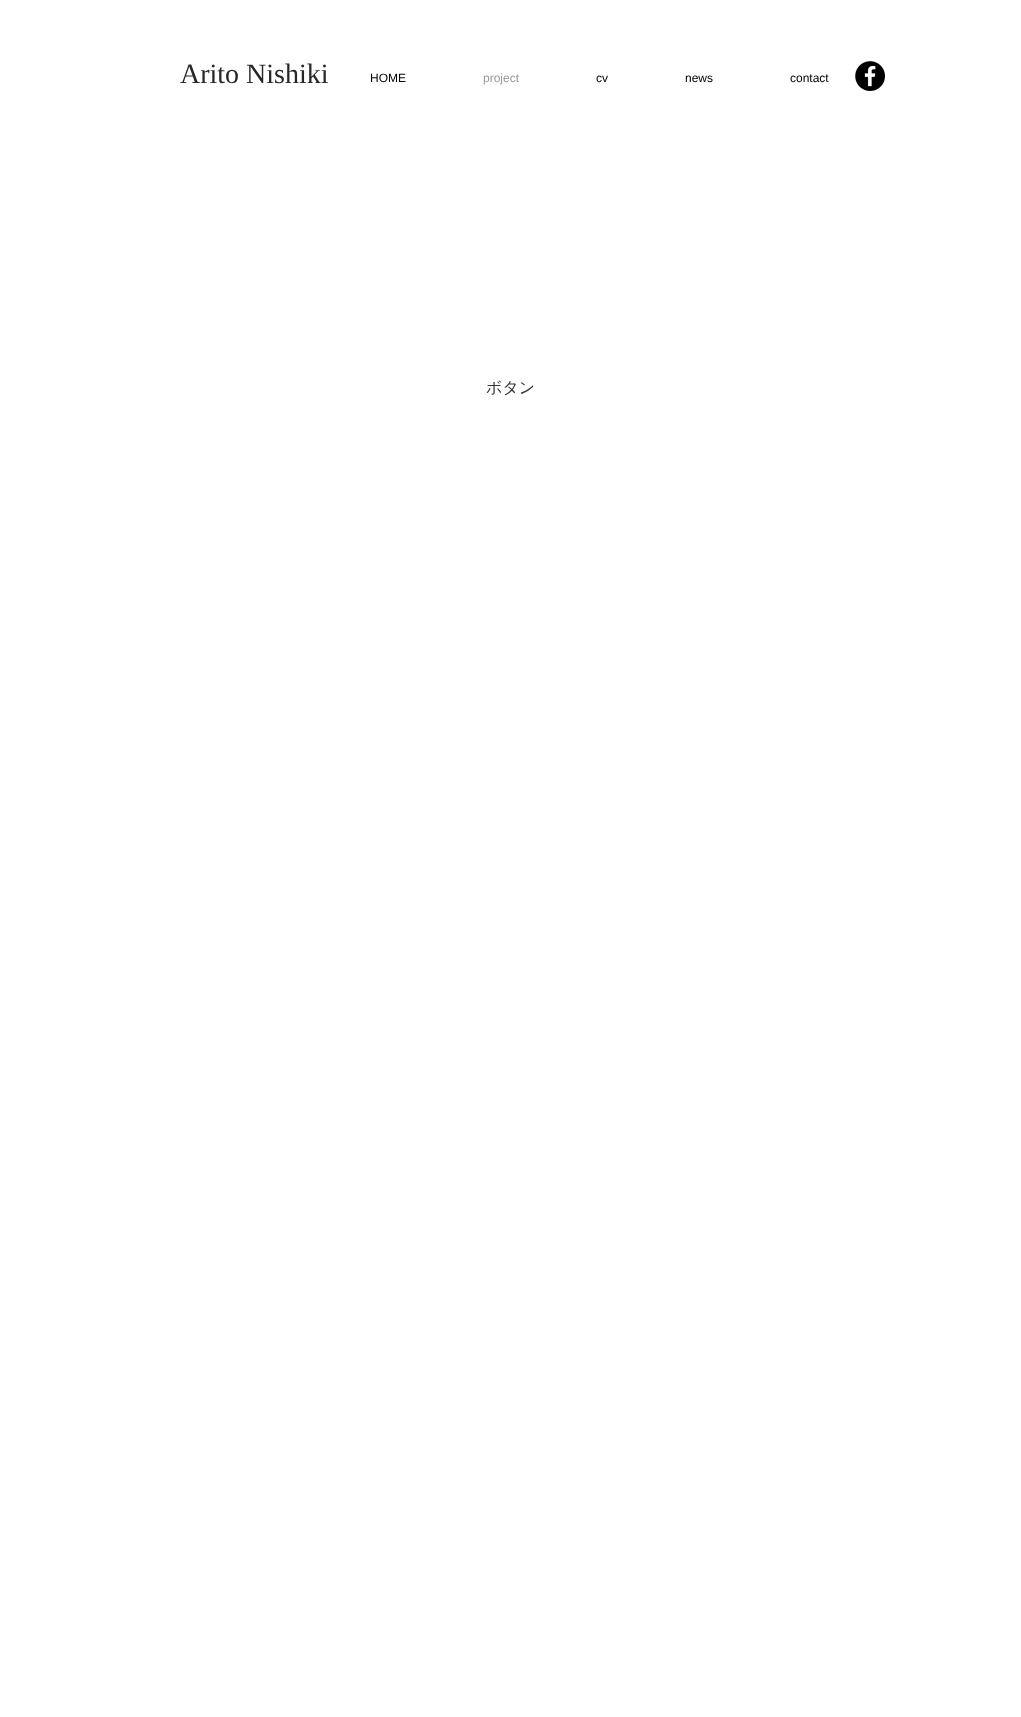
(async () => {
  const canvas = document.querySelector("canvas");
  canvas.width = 1021;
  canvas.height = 1717;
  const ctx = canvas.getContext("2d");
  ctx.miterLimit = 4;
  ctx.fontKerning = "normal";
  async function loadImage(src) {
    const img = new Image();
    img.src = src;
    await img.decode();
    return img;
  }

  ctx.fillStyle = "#ffffff";
  ctx.fillRect(0, 0, 1021, 1717);
  ctx.drawImage(await loadImage("img/1.png"), 855, 61, 30, 30);
  ctx.font = "28px Liberation Serif";
  ctx.fillStyle = "#272727";
  ctx.fillText("Arito Nishiki", 180, 83);
  ctx.font = "12px Liberation Sans";
  ctx.fillStyle = "#000000";
  ctx.fillText("HOME", 370, 82);
  ctx.fillStyle = "#999999";
  ctx.fillText("project", 483, 82);
  ctx.fillStyle = "#000000";
  for (const [text, x, y] of [
    ["cv", 596, 82],
    ["news", 685, 82],
    ["contact", 790, 82],
  ]) {
    ctx.fillText(text, x, y);
  }
  ctx.font = "500 16px WenQuanYi Zen Hei";
  ctx.fillStyle = "#333333";
  ctx.fillText("ボタン", 486, 393);
})();
